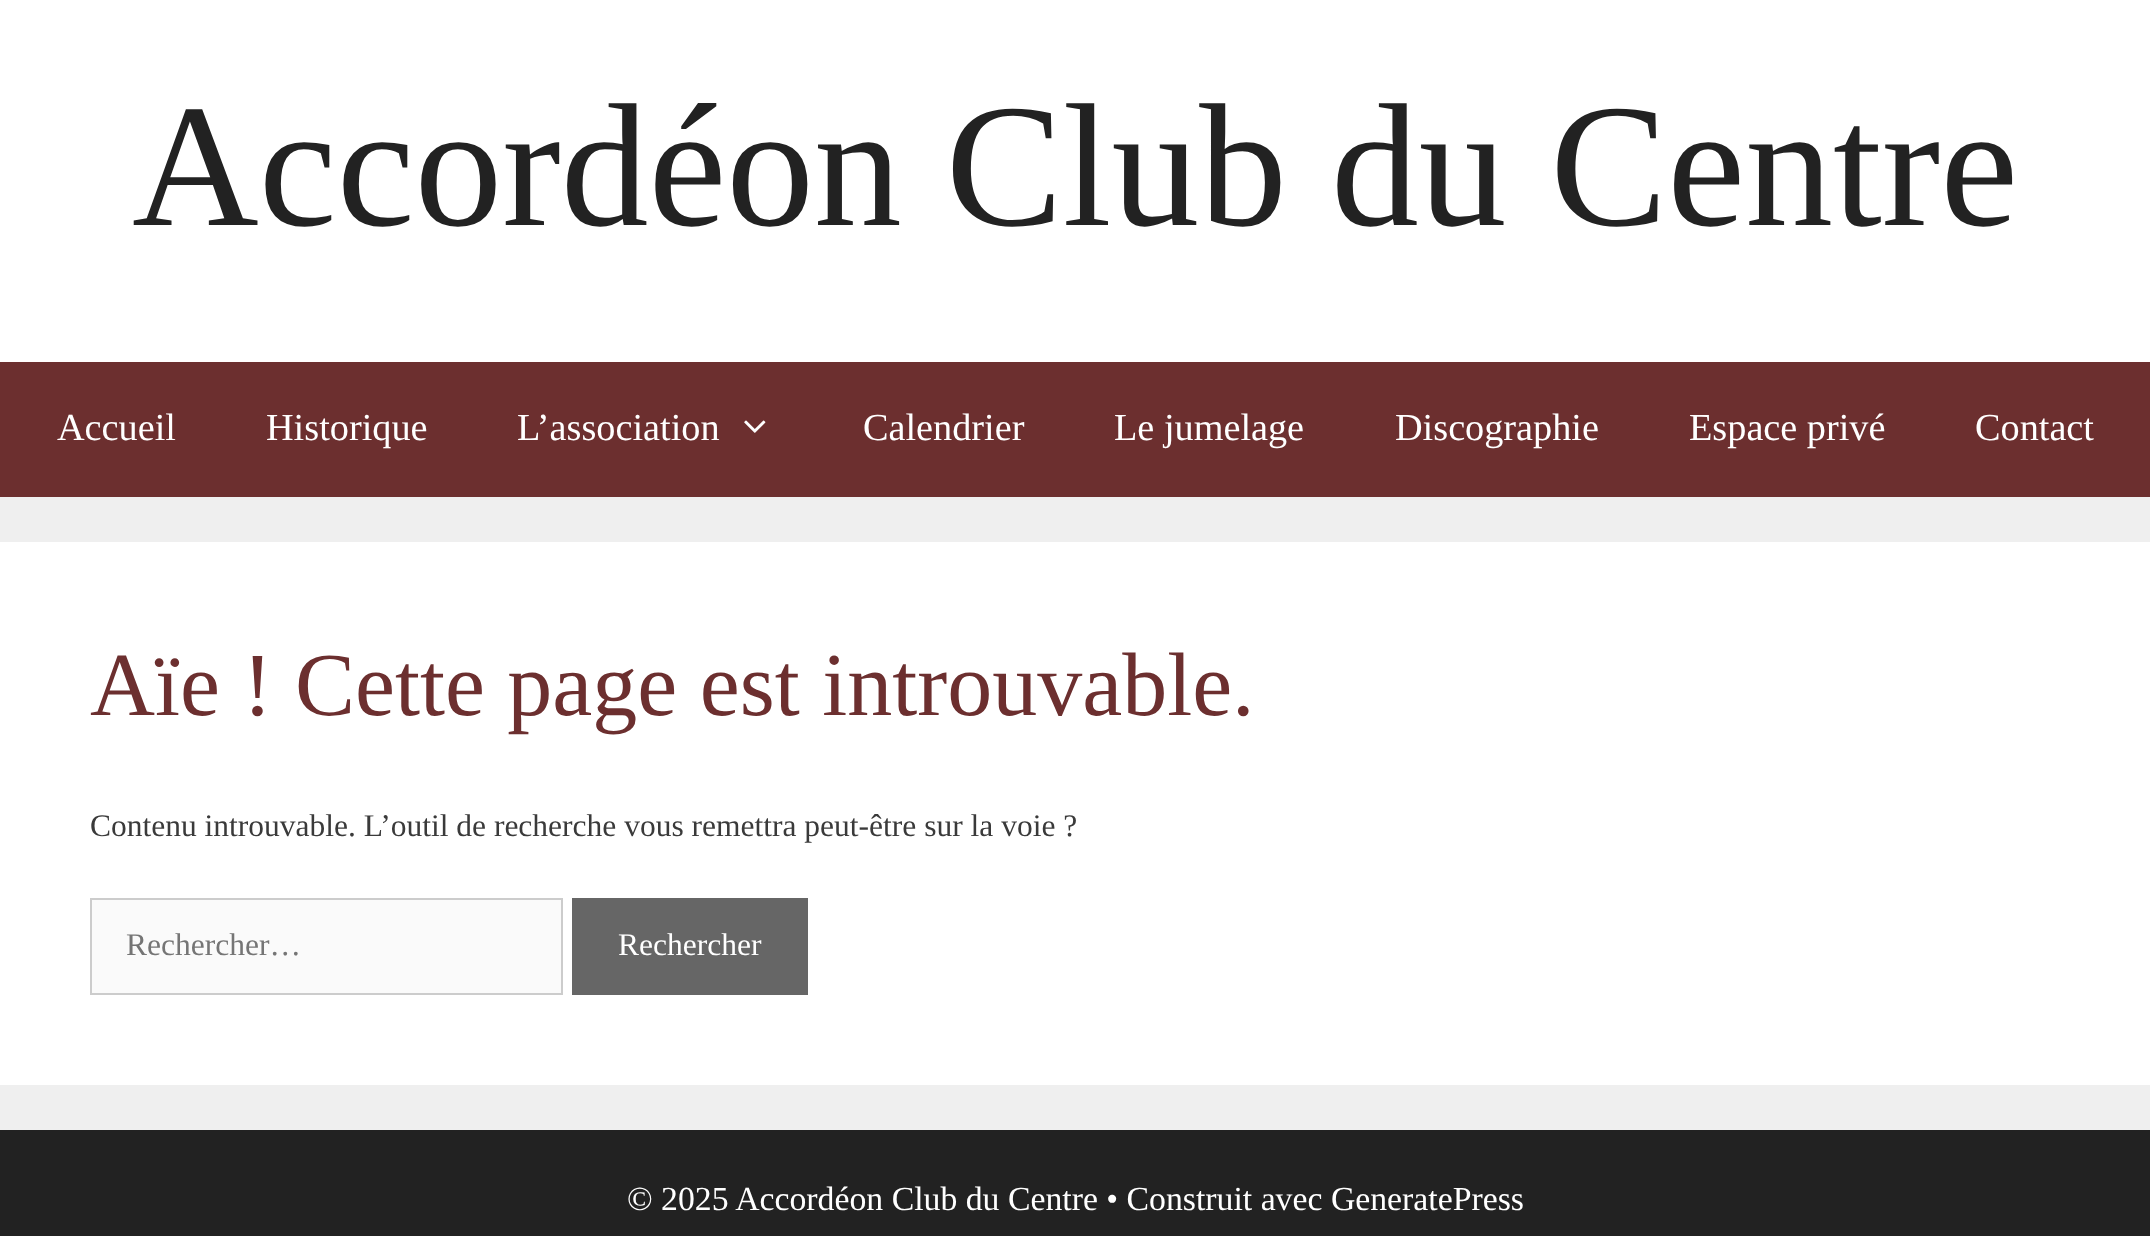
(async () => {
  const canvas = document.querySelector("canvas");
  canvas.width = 2150;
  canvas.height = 1236;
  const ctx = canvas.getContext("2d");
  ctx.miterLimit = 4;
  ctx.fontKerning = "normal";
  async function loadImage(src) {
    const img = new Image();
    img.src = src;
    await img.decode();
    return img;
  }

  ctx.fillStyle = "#efefef";
  ctx.fillRect(0, 0, 2150, 1236);
  ctx.fillStyle = "#ffffff";
  ctx.fillRect(0, 0, 2150, 362);
  ctx.fillStyle = "#6c2f2f";
  ctx.fillRect(0, 362, 2150, 135);
  ctx.drawImage(await loadImage("img/1.png"), 744, 420, 22, 13);
  ctx.fillStyle = "#ffffff";
  ctx.fillRect(0, 542, 2150, 543);
  ctx.fillStyle = "#fafafa";
  ctx.beginPath();
  ctx.rect(91, 899, 471, 95);
  ctx.fill();
  ctx.strokeStyle = "#cccccc";
  ctx.lineWidth = 2;
  ctx.stroke();
  ctx.fillStyle = "#666666";
  ctx.fillRect(572, 898, 236, 97);
  ctx.fillStyle = "#222222";
  ctx.fillRect(0, 1130, 2150, 106);
  ctx.font = "175.5px Liberation Serif";
  ctx.fillText("Accordéon Club du Centre", 132, 225);
  ctx.font = "38.25px Liberation Serif";
  ctx.fillStyle = "#ffffff";
  for (const [text, x, y] of [
    ["Accueil", 57, 440],
    ["Historique", 266, 440],
    ["L’association", 517, 440],
    ["Calendrier", 863, 440],
    ["Le jumelage", 1114, 440],
    ["Discographie", 1395, 440],
    ["Espace privé", 1689, 440],
    ["Contact", 1975, 440],
  ]) {
    ctx.fillText(text, x, y);
  }
  ctx.font = "90px Liberation Serif";
  ctx.fillStyle = "#6c2f2f";
  ctx.fillText("Aïe ! Cette page est introuvable.", 90, 715);
  ctx.font = "31.5px Liberation Serif";
  ctx.fillStyle = "#3a3a3a";
  ctx.fillText("Contenu introuvable. L’outil de recherche vous remettra peut-être sur la voie ?", 90, 836);
  ctx.fillStyle = "#757575";
  ctx.fillText("Rechercher…", 126, 955);
  ctx.fillStyle = "#ffffff";
  ctx.fillText("Rechercher", 618, 955);
  ctx.font = "33.75px Liberation Serif";
  ctx.fillText("© 2025 Accordéon Club du Centre • Construit avec GeneratePress", 627, 1210);
})();
